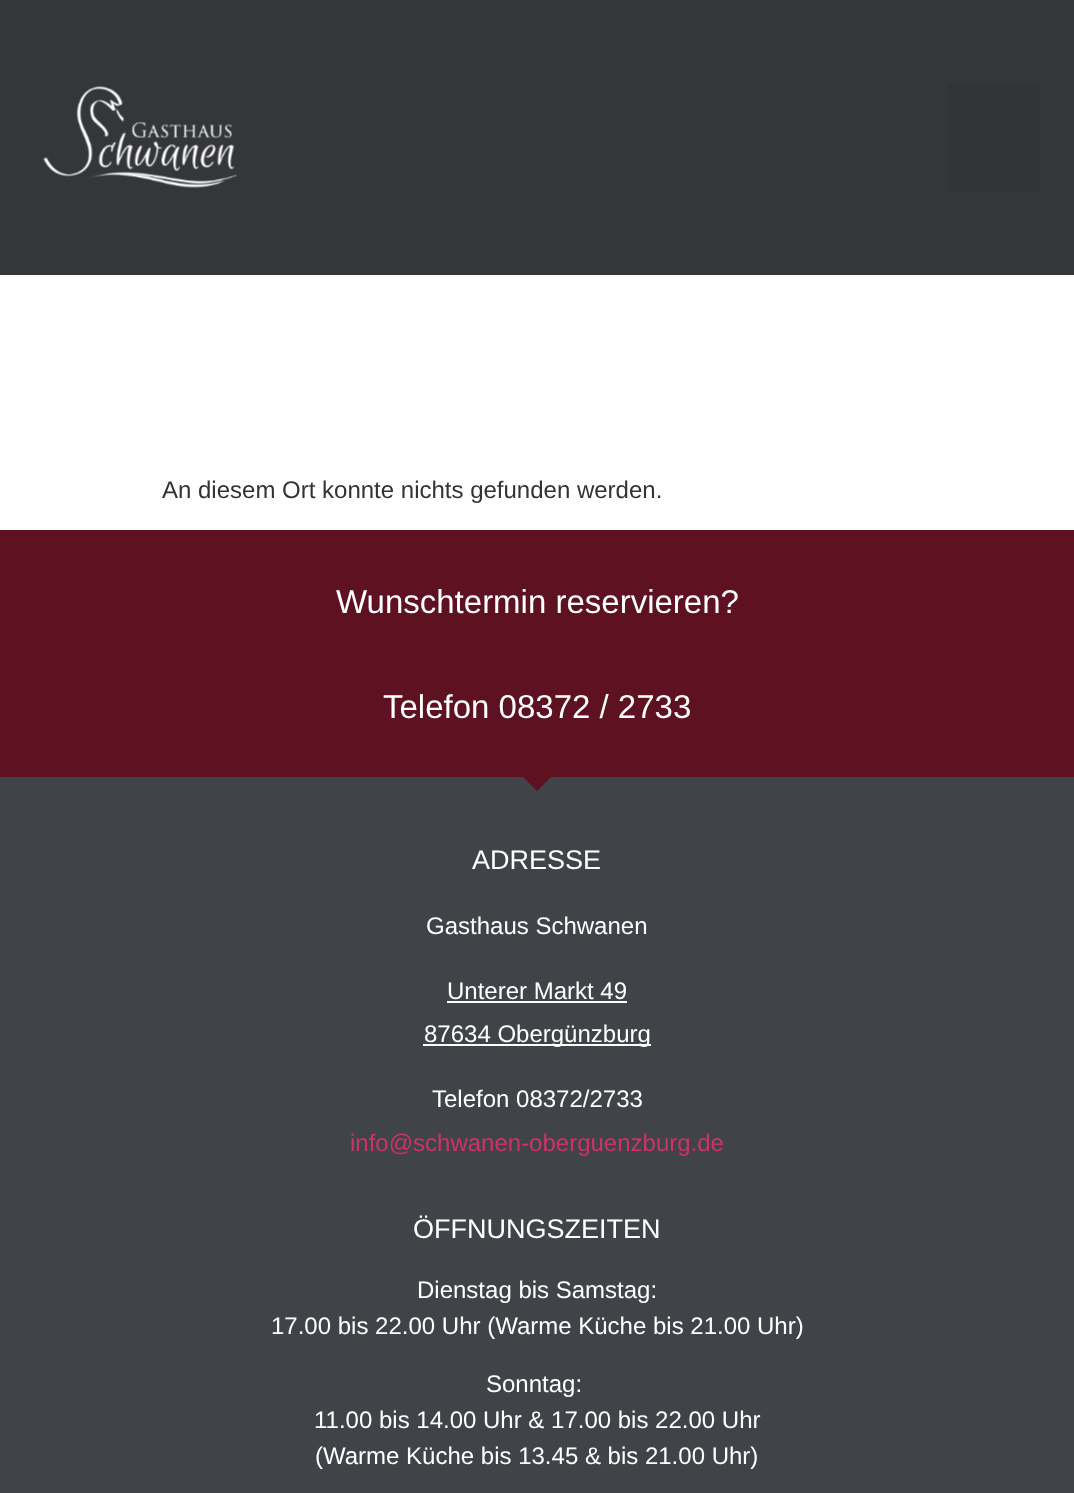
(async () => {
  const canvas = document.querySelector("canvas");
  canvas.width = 1074;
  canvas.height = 1493;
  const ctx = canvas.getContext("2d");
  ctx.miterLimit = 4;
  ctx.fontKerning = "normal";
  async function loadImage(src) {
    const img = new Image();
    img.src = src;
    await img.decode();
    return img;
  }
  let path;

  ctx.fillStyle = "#ffffff";
  ctx.fillRect(0, 0, 1074, 1493);
  ctx.fillStyle = "#343639";
  ctx.fillRect(0, 0, 1074, 275);
  ctx.drawImage(await loadImage("img/1.png"), 43, 86, 194, 102);
  for (const [x, y, w, h, color] of [
    [948, 84, 92, 108, "#313336"],
    [0, 530, 1074, 247, "#5d1121"],
    [0, 777, 1074, 716, "#404347"],
  ]) {
    ctx.fillStyle = color;
    ctx.fillRect(x, y, w, h);
  }
  ctx.save();
  ctx.beginPath();
  ctx.rect(0, 776, 1074, 16);
  ctx.clip();
  ctx.fillStyle = "#5d1121";
  path = new Path2D("M537 791L521.5 775.5H552.5Z");
  ctx.fill(path);
  ctx.restore();
  ctx.fillStyle = "#ffffff";
  ctx.fillRect(447, 1001, 180, 2);
  ctx.fillRect(423, 1044, 228, 2);
  ctx.font = "24px Liberation Sans";
  ctx.fillStyle = "#333333";
  ctx.fillText("An diesem Ort konnte nichts gefunden werden.", 162, 498);
  ctx.font = "33px Liberation Sans";
  ctx.fillStyle = "#ffffff";
  ctx.fillText("Wunschtermin reservieren?", 336, 613);
  ctx.fillText("Telefon 08372 / 2733", 383, 718);
  ctx.font = "27px Liberation Sans";
  ctx.fillText("ADRESSE", 472, 869);
  ctx.font = "24px Liberation Sans";
  for (const [text, x, y] of [
    ["Gasthaus Schwanen", 426, 934],
    ["Unterer Markt 49", 447, 999],
    ["87634 Obergünzburg", 424, 1042],
    ["Telefon 08372/2733", 432, 1107],
  ]) {
    ctx.fillText(text, x, y);
  }
  ctx.fillStyle = "#cc3366";
  ctx.fillText("info@schwanen-oberguenzburg.de", 350, 1151);
  ctx.font = "27px Liberation Sans";
  ctx.fillStyle = "#ffffff";
  ctx.fillText("ÖFFNUNGSZEITEN", 413, 1238);
  ctx.font = "24px Liberation Sans";
  for (const [text, x, y] of [
    ["Dienstag bis Samstag:", 417, 1298],
    ["17.00 bis 22.00 Uhr (Warme Küche bis 21.00 Uhr)", 271, 1334],
    ["Sonntag:", 486, 1392],
    ["11.00 bis 14.00 Uhr & 17.00 bis 22.00 Uhr", 314, 1428],
    ["(Warme Küche bis 13.45 & bis 21.00 Uhr)", 315, 1464],
  ]) {
    ctx.fillText(text, x, y);
  }
})();
